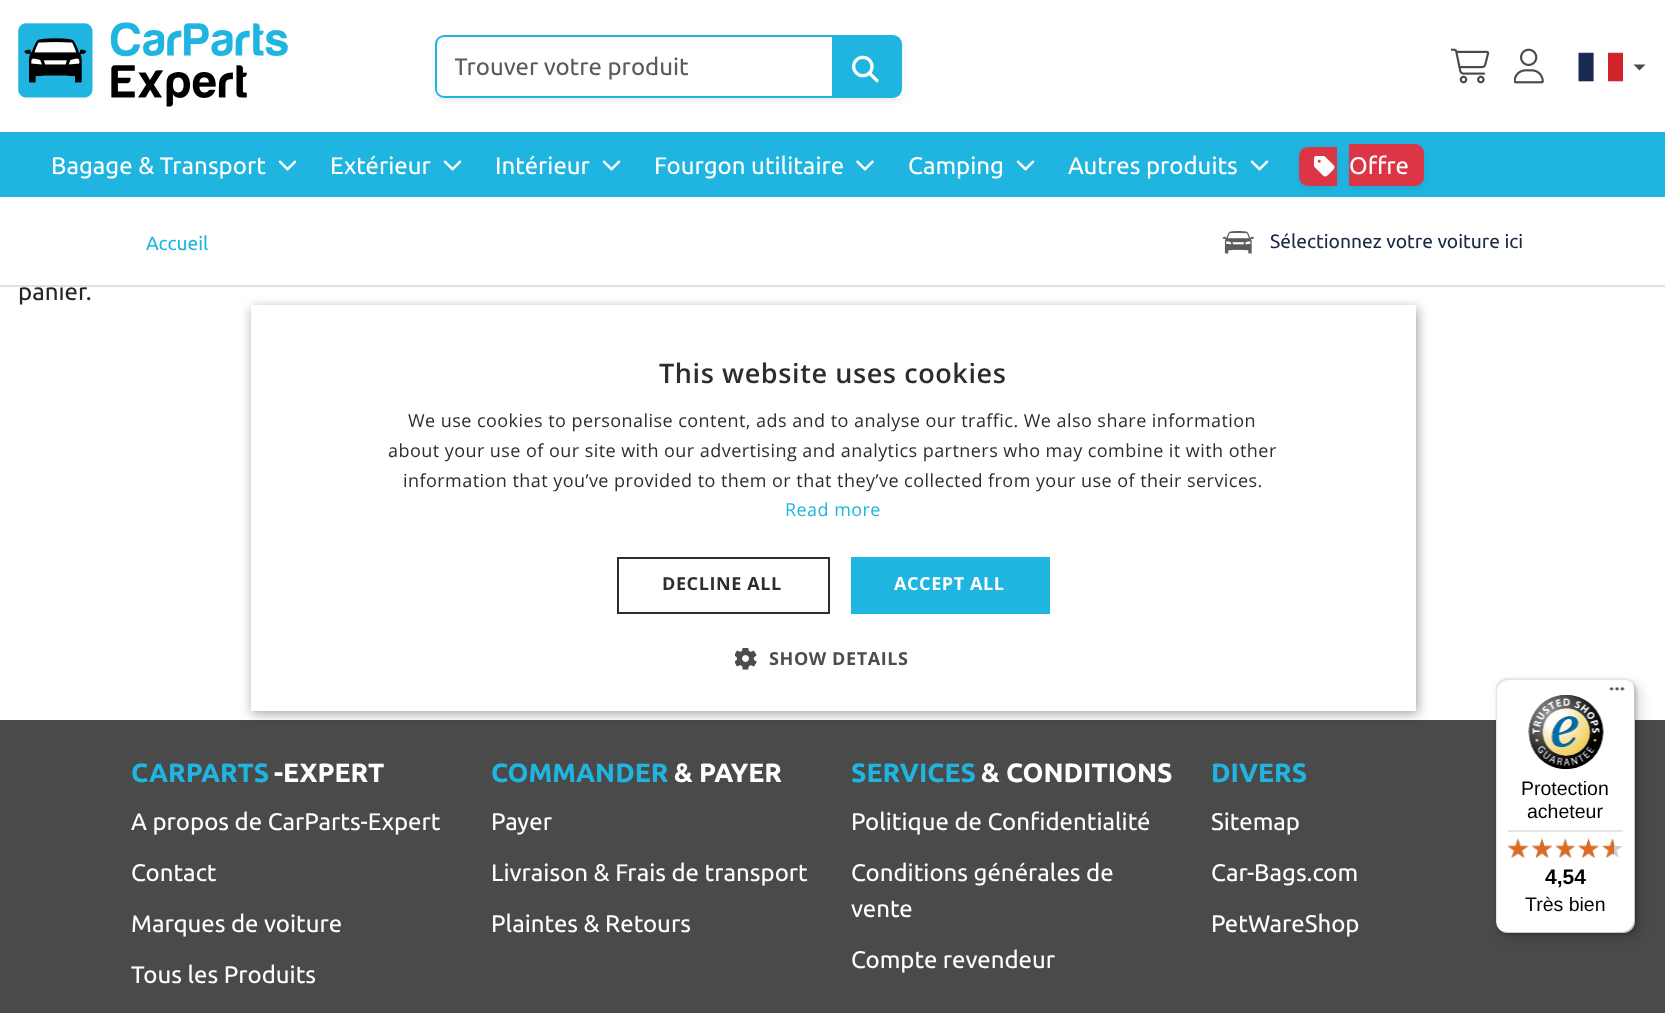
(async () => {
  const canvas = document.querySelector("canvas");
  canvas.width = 1665;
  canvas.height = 1013;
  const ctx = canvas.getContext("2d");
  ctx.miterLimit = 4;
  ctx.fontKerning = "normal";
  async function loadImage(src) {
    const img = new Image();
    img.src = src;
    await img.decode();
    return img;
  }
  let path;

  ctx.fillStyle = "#ffffff";
  ctx.fillRect(0, 0, 1665, 1013);
  ctx.drawImage(await loadImage("img/1.png"), 18, 22, 270, 85);
  ctx.save();
  path = new Path2D("M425 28H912V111H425ZM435 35H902V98H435Z");
  ctx.clip(path, "evenodd");
  ctx.fillStyle = "rgba(0, 0, 0, 0.07)";
  ctx.filter = "blur(3px)";
  ctx.beginPath();
  ctx.rect(435, 38, 467, 63);
  ctx.fill();
  ctx.filter = "none";
  ctx.restore();
  ctx.beginPath();
  ctx.roundRect(436, 36, 397, 61, [8, 0, 0, 8]);
  ctx.strokeStyle = "#1fb5e0";
  ctx.lineWidth = 2;
  ctx.stroke();
  ctx.fillStyle = "#1fb5e0";
  ctx.beginPath();
  ctx.roundRect(834, 36, 67, 61, [0, 8, 8, 0]);
  ctx.fill();
  ctx.stroke();
  ctx.drawImage(await loadImage("img/2.png"), 852, 55, 27, 28);
  ctx.drawImage(await loadImage("img/3.png"), 1451, 48, 39, 36);
  ctx.drawImage(await loadImage("img/4.png"), 1514, 48, 30, 36);
  ctx.drawImage(await loadImage("img/5.png"), 1578, 52, 45, 30);
  ctx.fillStyle = "#4a4a4a";
  path = new Path2D("M1633.5 64.5H1645.5L1639.5 70.5Z");
  ctx.fill(path);
  ctx.fillStyle = "#1fb5e0";
  ctx.fillRect(0, 132, 1665, 65);
  ctx.drawImage(await loadImage("img/6.png"), 278, 160, 19, 11);
  ctx.drawImage(await loadImage("img/6.png"), 443, 160, 19, 11);
  ctx.drawImage(await loadImage("img/6.png"), 602, 160, 19, 11);
  ctx.drawImage(await loadImage("img/7.png"), 856, 160, 18, 11);
  ctx.drawImage(await loadImage("img/6.png"), 1016, 160, 19, 11);
  ctx.drawImage(await loadImage("img/6.png"), 1250, 160, 19, 11);
  ctx.fillStyle = "rgba(0, 0, 0, 0.07)";
  ctx.filter = "blur(3px)";
  ctx.beginPath();
  ctx.roundRect(1299, 150, 38, 39, 9);
  ctx.fill();
  ctx.filter = "none";
  ctx.fillStyle = "#dc3545";
  ctx.beginPath();
  ctx.roundRect(1299, 147, 38, 39, [9, 0, 0, 9]);
  ctx.fill();
  ctx.fillStyle = "rgba(0, 0, 0, 0.07)";
  ctx.filter = "blur(3px)";
  ctx.beginPath();
  ctx.roundRect(1349, 147, 75, 42, 9);
  ctx.fill();
  ctx.filter = "none";
  ctx.fillStyle = "#dc3545";
  ctx.beginPath();
  ctx.roundRect(1349, 144, 75, 42, [0, 9, 9, 0]);
  ctx.fill();
  ctx.drawImage(await loadImage("img/8.png"), 1314, 156, 21, 21);
  ctx.drawImage(await loadImage("img/9.png"), 1222, 231, 32, 23);
  ctx.fillStyle = "#4a4a4a";
  ctx.fillRect(0, 720, 1665, 293);
  ctx.fillStyle = "rgba(0, 0, 0, 0.35)";
  ctx.filter = "blur(6px)";
  ctx.beginPath();
  ctx.rect(252, 308, 1166, 406);
  ctx.fill();
  ctx.filter = "none";
  ctx.fillStyle = "#ffffff";
  ctx.fillRect(251, 305, 1165, 406);
  ctx.strokeStyle = "#2d2d2d";
  ctx.strokeRect(618, 558, 211, 55);
  ctx.fillStyle = "#1fb5e1";
  ctx.fillRect(851, 557, 199, 57);
  ctx.drawImage(await loadImage("img/10.png"), 735, 648, 22, 22);
  ctx.fillStyle = "rgba(0, 0, 0, 0.15)";
  ctx.filter = "blur(6px)";
  ctx.beginPath();
  ctx.roundRect(1500, 683, 140, 255, 12);
  ctx.fill();
  ctx.filter = "none";
  ctx.filter = "blur(1.5px)";
  ctx.beginPath();
  ctx.roundRect(1497, 680, 140, 255, 12);
  ctx.fill();
  ctx.filter = "none";
  ctx.fillStyle = "#ffffff";
  ctx.beginPath();
  ctx.roundRect(1496, 678, 139, 255, 12);
  ctx.fill();
  ctx.fillStyle = "rgba(0, 0, 0, 0.1)";
  path = new Path2D("M1509 680H1624C1628 680 1632 682 1634 685C1632 681 1628 678 1623 678H1508C1501 678 1496 683 1496 690V921C1496 924 1497 927 1499 929C1498 927 1497 925 1497 922V692C1497 685 1502 680 1509 680Z");
  ctx.fill(path);
  ctx.fillStyle = "rgba(0, 0, 0, 0.2)";
  path = new Path2D("M1502 931C1503 932 1506 933 1508 933H1623C1630 933 1635 928 1635 921V690C1635 687 1634 685 1632 683C1633 684 1634 686 1634 688V920C1634 926 1628 932 1622 932H1506Z");
  ctx.fill(path);
  ctx.fillStyle = "rgba(50, 50, 50, 0.2)";
  path = new Path2D("M1500 930C1502 932 1505 933 1508 933H1623C1630 933 1635 928 1635 921V690C1635 687 1634 684 1632 682C1633 684 1634 686 1634 689V920C1634 927 1629 932 1622 932H1507C1504 932 1502 931 1500 930Z");
  ctx.fill(path);
  ctx.fillStyle = "rgba(255, 255, 255, 0.3)";
  path = new Path2D("M1500 930C1502 932 1505 933 1508 933H1623C1630 933 1635 928 1635 921V690C1635 686 1633 683 1631 681C1633 683 1634 686 1634 689V920C1634 927 1629 932 1622 932H1507C1504 932 1502 931 1500 930Z");
  ctx.fill(path);
  ctx.drawImage(await loadImage("img/11.png"), 1609, 687, 16, 4);
  ctx.drawImage(await loadImage("img/12.png"), 1528, 695, 76, 75);
  ctx.fillStyle = "#e5e5e5";
  ctx.fillRect(1508, 830, 115, 2);
  ctx.drawImage(await loadImage("img/13.png"), 1507, 839, 22, 19);
  ctx.drawImage(await loadImage("img/14.png"), 1532, 838, 20, 20);
  ctx.drawImage(await loadImage("img/15.png"), 1555, 839, 20, 19);
  ctx.drawImage(await loadImage("img/16.png"), 1578, 838, 21, 20);
  ctx.drawImage(await loadImage("img/17.png"), 1602, 839, 21, 19);
  ctx.drawImage(await loadImage("img/18.png"), 1507, 838, 22, 20);
  ctx.drawImage(await loadImage("img/19.png"), 1532, 838, 20, 20);
  ctx.drawImage(await loadImage("img/20.png"), 1555, 838, 20, 20);
  ctx.drawImage(await loadImage("img/21.png"), 1578, 838, 21, 20);
  ctx.drawImage(await loadImage("img/22.png"), 1602, 838, 12, 20);
  ctx.save();
  ctx.beginPath();
  ctx.rect(455, 53, 360, 27);
  ctx.clip();
  ctx.font = "24px Ubuntu";
  ctx.fillStyle = "#595c5f";
  ctx.fillText("Trouver votre produit", 454, 75);
  ctx.restore();
  ctx.font = "24px Ubuntu";
  ctx.fillStyle = "#ffffff";
  for (const [text, x, y] of [
    ["Bagage & Transport", 51, 174],
    ["Extérieur", 330, 174],
    ["Intérieur", 495, 174],
    ["Fourgon utilitaire", 654, 174],
    ["Camping", 908, 174],
    ["Autres produits", 1068, 174],
    ["Offre", 1349, 174],
  ]) {
    ctx.fillText(text, x, y);
  }
  ctx.font = "19.25px Ubuntu";
  ctx.fillStyle = "#1fb5e0";
  ctx.fillText("Accueil", 146, 250);
  ctx.fillStyle = "#1c2944";
  ctx.fillText("Sélectionnez votre voiture ici", 1270, 248);
  ctx.font = "24px Ubuntu";
  ctx.fillStyle = "#212529";
  ctx.fillText("panier.", 18, 300);
  ctx.fillStyle = "#dee2e6";
  ctx.fillRect(0, 285, 1665, 2);
  ctx.fillStyle = "#ffffff";
  ctx.fillRect(60, 282, 3, 3);
  ctx.letterSpacing = "0.6px";
  ctx.font = "600 27px Open Sans";
  ctx.fillStyle = "#2d2d2d";
  ctx.fillText("This website uses cookies", 659, 383);
  ctx.letterSpacing = "0.45px";
  ctx.font = "18px Open Sans";
  for (const [text, x, y] of [
    ["We use cookies to personalise content, ads and to analyse our traffic. We also share information", 408, 427],
    ["about your use of our site with our advertising and analytics partners who may combine it with other", 388, 457],
    ["information that you’ve provided to them or that they’ve collected from your use of their services.", 403, 487],
  ]) {
    ctx.fillText(text, x, y);
  }
  ctx.fillStyle = "#1fb5e0";
  ctx.fillText("Read more", 785, 516);
  ctx.letterSpacing = "0.6px";
  ctx.font = "bold 18px Open Sans";
  ctx.fillStyle = "#2d2d2d";
  ctx.fillText("DECLINE ALL", 662, 590);
  ctx.fillStyle = "#ffffff";
  ctx.fillText("ACCEPT ALL", 894, 590);
  ctx.fillStyle = "#4d4d4d";
  ctx.fillText("SHOW DETAILS", 769, 665);
  ctx.letterSpacing = "0px";
  ctx.font = "bold 26.5px Ubuntu";
  ctx.fillStyle = "#1fb5e0";
  ctx.fillText("CARPARTS", 131, 782);
  ctx.fillStyle = "#ffffff";
  ctx.fillText("-EXPERT", 274, 782);
  ctx.font = "24px Ubuntu";
  for (const [text, x, y] of [
    ["A propos de CarParts-Expert", 131, 830],
    ["Contact", 131, 881],
    ["Marques de voiture", 131, 932],
    ["Tous les Produits", 131, 983],
  ]) {
    ctx.fillText(text, x, y);
  }
  ctx.font = "bold 26.5px Ubuntu";
  ctx.fillStyle = "#1fb5e0";
  ctx.fillText("COMMANDER", 491, 782);
  ctx.fillStyle = "#ffffff";
  ctx.fillText("& PAYER", 674, 782);
  ctx.font = "24px Ubuntu";
  for (const [text, x, y] of [
    ["Payer", 491, 830],
    ["Livraison & Frais de transport", 491, 881],
    ["Plaintes & Retours", 491, 932],
  ]) {
    ctx.fillText(text, x, y);
  }
  ctx.font = "bold 26.5px Ubuntu";
  ctx.fillStyle = "#1fb5e0";
  ctx.fillText("SERVICES", 851, 782);
  ctx.fillStyle = "#ffffff";
  ctx.fillText("& CONDITIONS", 981, 782);
  ctx.font = "24px Ubuntu";
  for (const [text, x, y] of [
    ["Politique de Confidentialité", 851, 830],
    ["Conditions générales de", 851, 881],
    ["vente", 851, 917],
    ["Compte revendeur", 851, 968],
  ]) {
    ctx.fillText(text, x, y);
  }
  ctx.font = "bold 26.5px Ubuntu";
  ctx.fillStyle = "#1fb5e0";
  ctx.fillText("DIVERS", 1211, 782);
  ctx.font = "24px Ubuntu";
  ctx.fillStyle = "#ffffff";
  for (const [text, x, y] of [
    ["Sitemap", 1211, 830],
    ["Car-Bags.com", 1211, 881],
    ["PetWareShop", 1211, 932],
  ]) {
    ctx.fillText(text, x, y);
  }
  ctx.font = "19.5px Liberation Sans";
  ctx.fillStyle = "#000000";
  ctx.fillText("Protection", 1521, 795);
  ctx.fillText("acheteur", 1527, 818);
  ctx.font = "bold 21px Liberation Sans";
  ctx.fillText("4,54", 1545, 884);
  ctx.font = "19.5px Liberation Sans";
  ctx.fillText("Très bien", 1525, 911);
})();
